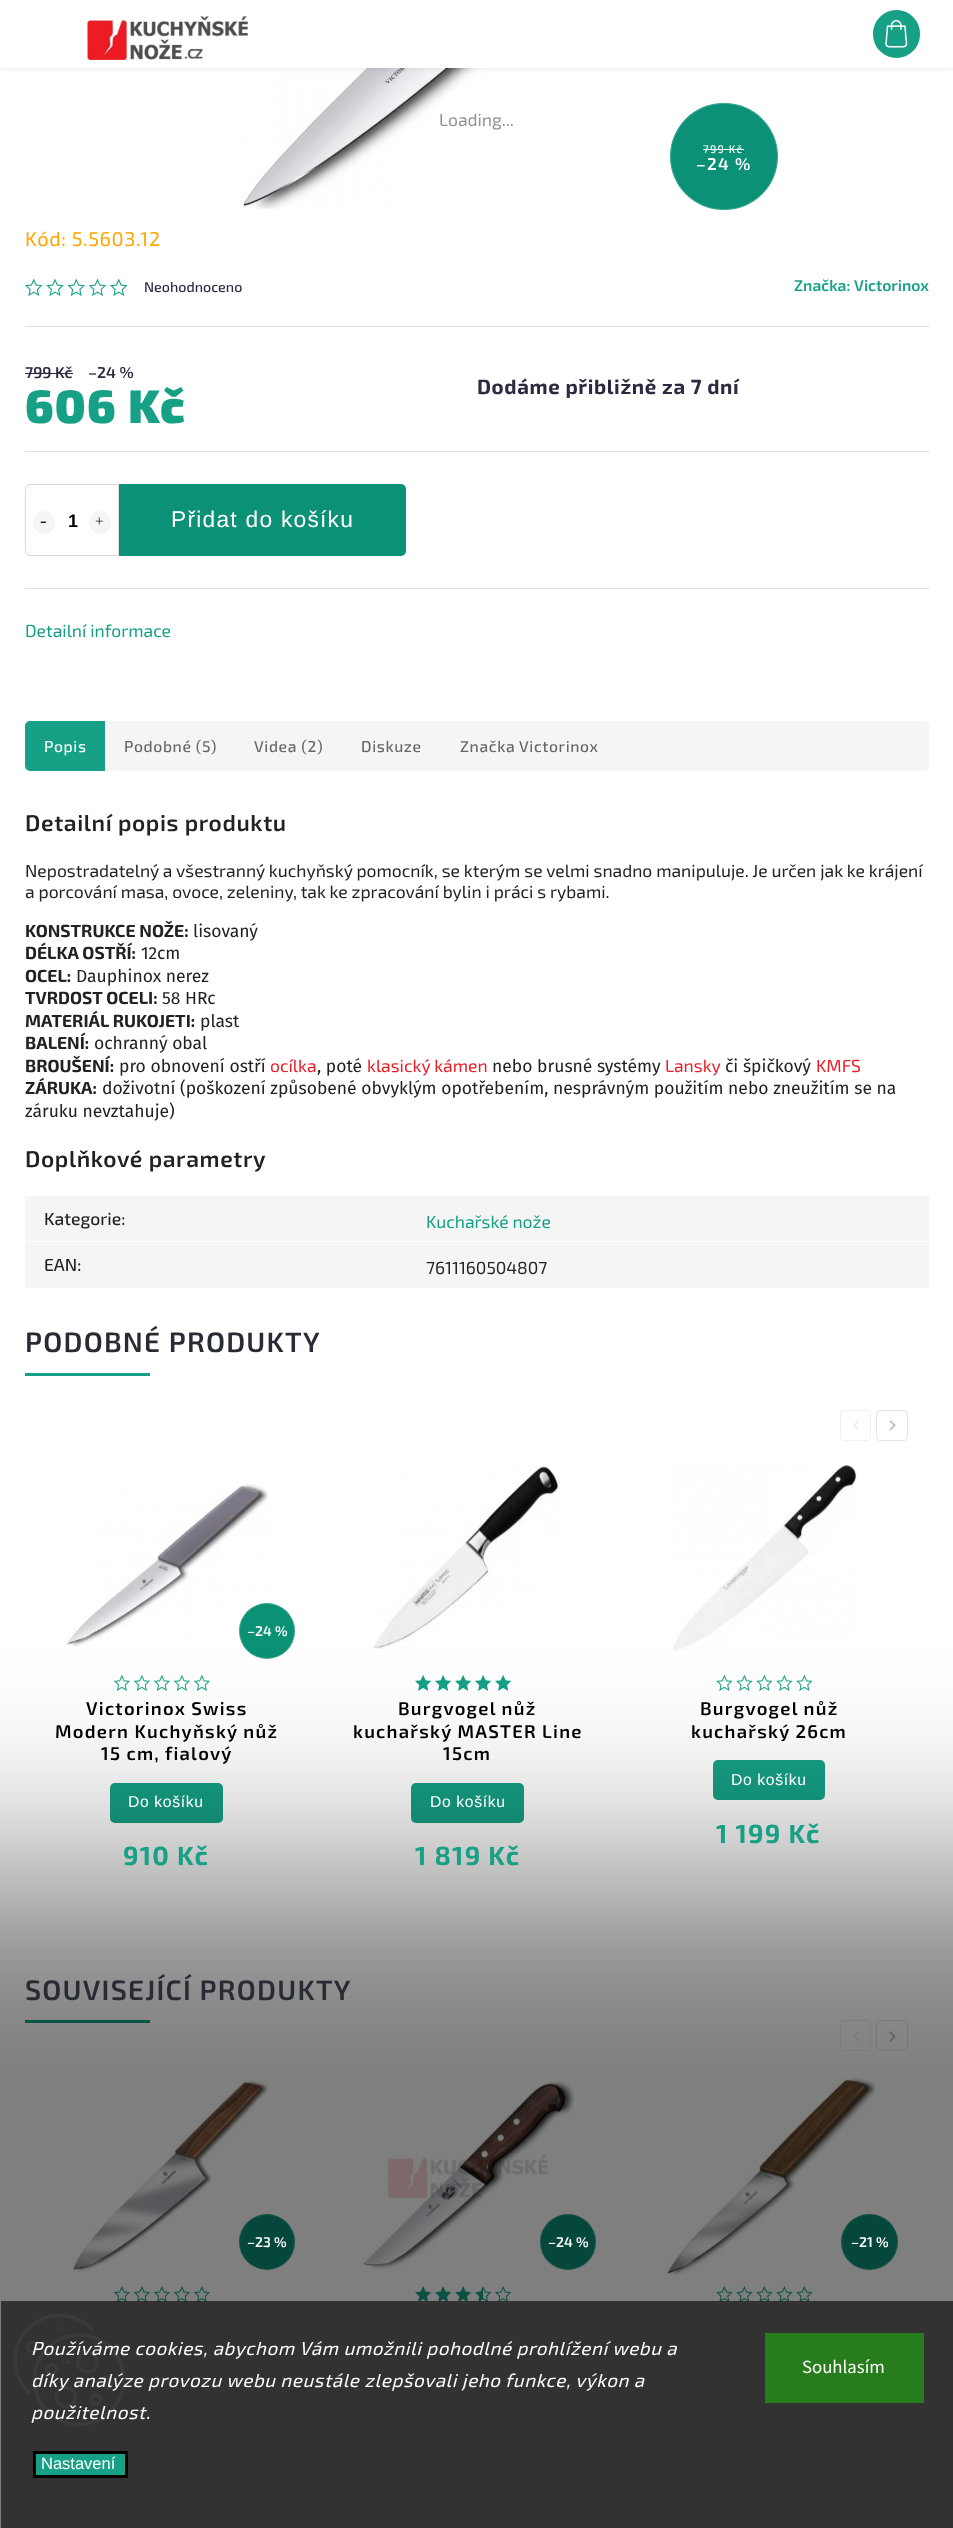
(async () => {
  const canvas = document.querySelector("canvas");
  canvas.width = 953;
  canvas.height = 2528;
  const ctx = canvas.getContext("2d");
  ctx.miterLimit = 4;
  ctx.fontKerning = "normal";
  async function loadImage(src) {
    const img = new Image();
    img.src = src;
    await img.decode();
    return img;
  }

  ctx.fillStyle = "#ffffff";
  ctx.fillRect(0, 0, 953, 2528);
  ctx.drawImage(await loadImage("img/3.png"), 243, 68, 328, 141);
  ctx.fillStyle = "rgba(0, 0, 0, 0.1)";
  ctx.filter = "blur(3px)";
  ctx.beginPath();
  ctx.rect(0, -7, 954, 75);
  ctx.fill();
  ctx.filter = "none";
  ctx.fillStyle = "#ffffff";
  ctx.fillRect(0, 0, 953, 68);
  ctx.drawImage(await loadImage("img/1.png"), 87, 16, 161, 44);
  ctx.fillStyle = "#16a085";
  ctx.beginPath();
  ctx.roundRect(873, 10, 47, 48, 23.5);
  ctx.fill();
  ctx.drawImage(await loadImage("img/2.png"), 885, 20, 23, 28);
  ctx.fillStyle = "#0a9176";
  ctx.beginPath();
  ctx.roundRect(670, 103, 108, 107, 53.5);
  ctx.fill();
  ctx.beginPath();
  ctx.roundRect(670.5, 103.5, 107, 106, 53);
  ctx.strokeStyle = "rgba(255, 255, 255, 0.2)";
  ctx.stroke();
  ctx.fillStyle = "#ffffff";
  ctx.fillRect(703, 149, 41, 1);
  ctx.drawImage(await loadImage("img/4.png"), 25, 278, 18, 18);
  ctx.drawImage(await loadImage("img/5.png"), 46, 278, 18, 18);
  ctx.drawImage(await loadImage("img/6.png"), 67, 278, 18, 18);
  ctx.drawImage(await loadImage("img/7.png"), 88, 278, 19, 18);
  ctx.drawImage(await loadImage("img/4.png"), 110, 278, 18, 18);
  for (const [x, y, w, h, color] of [
    [25, 326, 904, 1, "#dfdfdf"],
    [25, 373, 48, 1, "#2b2a40"],
    [25, 451, 904, 1, "#dfdfdf"],
    [25, 588, 904, 1, "#dfdfdf"],
  ]) {
    ctx.fillStyle = color;
    ctx.fillRect(x, y, w, h);
  }
  ctx.beginPath();
  ctx.roundRect(25.5, 484.5, 93, 71, [4.5, 0, 0, 4.5]);
  ctx.strokeStyle = "#dadada";
  ctx.stroke();
  ctx.fillStyle = "#f5f5f5";
  ctx.beginPath();
  ctx.roundRect(33, 511, 22, 23, 11);
  ctx.fill();
  ctx.beginPath();
  ctx.roundRect(89, 511, 22, 23, 11);
  ctx.fill();
  ctx.fillStyle = "#0a9176";
  ctx.beginPath();
  ctx.roundRect(119, 484, 287, 72, [0, 5, 5, 0]);
  ctx.fill();
  ctx.fillStyle = "#f5f5f5";
  ctx.beginPath();
  ctx.roundRect(25, 721, 904, 50, 5);
  ctx.fill();
  ctx.fillStyle = "#16a085";
  ctx.beginPath();
  ctx.roundRect(25, 721, 80, 50, [5, 0, 0, 5]);
  ctx.fill();
  for (const [x, y, w, h, color] of [
    [25, 1196, 904, 45, "#f5f5f5"],
    [25, 1242, 904, 46, "#f5f5f5"],
    [25, 1373, 125, 3, "#16a085"],
  ]) {
    ctx.fillStyle = color;
    ctx.fillRect(x, y, w, h);
  }
  ctx.drawImage(await loadImage("img/8.png"), 853, 1420, 7, 11);
  ctx.beginPath();
  ctx.roundRect(840.5, 1410.5, 30, 30, 3.5);
  ctx.strokeStyle = "#f0f0f0";
  ctx.stroke();
  ctx.drawImage(await loadImage("img/9.png"), 889, 1420, 7, 11);
  ctx.beginPath();
  ctx.roundRect(876.5, 1410.5, 31, 30, 3.5);
  ctx.strokeStyle = "#dfe4eb";
  ctx.stroke();
  ctx.drawImage(await loadImage("img/10.png"), 65, 1484, 204, 163);
  ctx.fillStyle = "#0a9176";
  ctx.beginPath();
  ctx.arc(267, 1631, 28, 0, Math.PI * 2);
  ctx.fill();
  ctx.beginPath();
  ctx.arc(267, 1631, 27.5, 0, Math.PI * 2);
  ctx.strokeStyle = "rgba(255, 255, 255, 0.2)";
  ctx.stroke();
  ctx.drawImage(await loadImage("img/11.png"), 113, 1674, 17, 17);
  ctx.drawImage(await loadImage("img/11.png"), 133, 1674, 17, 17);
  ctx.drawImage(await loadImage("img/11.png"), 153, 1674, 17, 17);
  ctx.drawImage(await loadImage("img/11.png"), 173, 1674, 17, 17);
  ctx.drawImage(await loadImage("img/11.png"), 193, 1674, 17, 17);
  ctx.fillStyle = "#16a085";
  ctx.beginPath();
  ctx.roundRect(110, 1783, 113, 40, 5);
  ctx.fill();
  ctx.drawImage(await loadImage("img/12.png"), 373, 1466, 188, 183);
  ctx.drawImage(await loadImage("img/13.png"), 415, 1674, 17, 17);
  ctx.drawImage(await loadImage("img/13.png"), 435, 1674, 17, 17);
  ctx.drawImage(await loadImage("img/13.png"), 455, 1674, 17, 17);
  ctx.drawImage(await loadImage("img/13.png"), 475, 1674, 17, 17);
  ctx.drawImage(await loadImage("img/13.png"), 495, 1674, 17, 17);
  ctx.beginPath();
  ctx.roundRect(411, 1783, 113, 40, 5);
  ctx.fill();
  ctx.drawImage(await loadImage("img/14.png"), 672, 1464, 185, 187);
  ctx.drawImage(await loadImage("img/15.png"), 716, 1674, 17, 17);
  ctx.drawImage(await loadImage("img/15.png"), 736, 1674, 17, 17);
  ctx.drawImage(await loadImage("img/15.png"), 756, 1674, 17, 17);
  ctx.drawImage(await loadImage("img/15.png"), 776, 1674, 17, 17);
  ctx.drawImage(await loadImage("img/15.png"), 796, 1674, 17, 17);
  ctx.beginPath();
  ctx.roundRect(713, 1760, 112, 40, 5);
  ctx.fill();
  ctx.fillRect(25, 2020, 125, 3);
  ctx.drawImage(await loadImage("img/16.png"), 853, 2031, 7, 11);
  ctx.beginPath();
  ctx.roundRect(840.5, 2020.5, 30, 30, 3.5);
  ctx.strokeStyle = "#f0f0f0";
  ctx.stroke();
  ctx.drawImage(await loadImage("img/17.png"), 889, 2031, 7, 11);
  ctx.beginPath();
  ctx.roundRect(876.5, 2020.5, 31, 30, 3.5);
  ctx.strokeStyle = "#dfe4eb";
  ctx.stroke();
  ctx.drawImage(await loadImage("img/18.png"), 73, 2080, 195, 192);
  ctx.fillStyle = "#0a9176";
  ctx.beginPath();
  ctx.arc(267, 2242, 28, 0, Math.PI * 2);
  ctx.fill();
  ctx.beginPath();
  ctx.arc(267, 2242, 27.5, 0, Math.PI * 2);
  ctx.strokeStyle = "rgba(255, 255, 255, 0.2)";
  ctx.stroke();
  ctx.drawImage(await loadImage("img/19.png"), 113, 2286, 17, 15);
  ctx.drawImage(await loadImage("img/19.png"), 133, 2286, 17, 15);
  ctx.drawImage(await loadImage("img/19.png"), 153, 2286, 17, 15);
  ctx.drawImage(await loadImage("img/19.png"), 173, 2286, 17, 15);
  ctx.drawImage(await loadImage("img/19.png"), 193, 2286, 17, 15);
  ctx.drawImage(await loadImage("img/20.png"), 363, 2081, 211, 189);
  ctx.beginPath();
  ctx.arc(568, 2242, 28, 0, Math.PI * 2);
  ctx.fill();
  ctx.beginPath();
  ctx.arc(568, 2242, 27.5, 0, Math.PI * 2);
  ctx.stroke();
  ctx.drawImage(await loadImage("img/21.png"), 415, 2286, 17, 15);
  ctx.drawImage(await loadImage("img/21.png"), 435, 2286, 17, 15);
  ctx.drawImage(await loadImage("img/21.png"), 455, 2286, 17, 15);
  ctx.drawImage(await loadImage("img/22.png"), 475, 2286, 17, 15);
  ctx.drawImage(await loadImage("img/23.png"), 495, 2286, 17, 15);
  ctx.drawImage(await loadImage("img/24.png"), 665, 2076, 211, 201);
  ctx.beginPath();
  ctx.roundRect(841, 2214, 57, 56, 28);
  ctx.fill();
  ctx.beginPath();
  ctx.roundRect(841.5, 2214.5, 56, 55, 27.5);
  ctx.stroke();
  ctx.drawImage(await loadImage("img/25.png"), 716, 2286, 17, 15);
  ctx.drawImage(await loadImage("img/25.png"), 736, 2286, 17, 15);
  ctx.drawImage(await loadImage("img/25.png"), 756, 2286, 17, 15);
  ctx.drawImage(await loadImage("img/25.png"), 776, 2286, 17, 15);
  ctx.drawImage(await loadImage("img/25.png"), 796, 2286, 17, 15);
  ctx.fillStyle = "rgba(0, 0, 0, 0.5)";
  ctx.filter = "blur(100px)";
  ctx.beginPath();
  ctx.rect(-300, 1875, 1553, 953);
  ctx.fill();
  ctx.filter = "none";
  ctx.fillStyle = "#323232";
  ctx.fillRect(1, 2301, 952, 227);
  ctx.drawImage(await loadImage("img/26.png"), 13, 2314, 112, 112);
  ctx.fillStyle = "#16a085";
  ctx.beginPath();
  ctx.rect(34.5, 2452.5, 92, 24);
  ctx.fill();
  ctx.strokeStyle = "#000000";
  ctx.lineWidth = 3;
  ctx.stroke();
  ctx.fillStyle = "#277c1b";
  ctx.fillRect(765, 2333, 159, 70);
  ctx.font = "17.5px 'Exo 2'";
  ctx.fillStyle = "#919191";
  ctx.fillText("Loading...", 439, 126);
  ctx.letterSpacing = "1.25px";
  ctx.font = "500 11px 'Exo 2'";
  ctx.fillStyle = "#ffffff";
  ctx.fillText("799 Kč", 703, 153);
  ctx.font = "600 17px 'Exo 2'";
  ctx.fillText("–24 %", 696, 170);
  ctx.letterSpacing = "0.62px";
  ctx.font = "20px 'Exo 2'";
  ctx.fillStyle = "#ffa500";
  ctx.fillText("Kód: 5.5603.12", 25, 246);
  ctx.letterSpacing = "0px";
  ctx.font = "500 14.25px 'Exo 2'";
  ctx.fillStyle = "#2b2a40";
  ctx.fillText("Neohodnoceno", 144, 292);
  ctx.font = "600 15.75px 'Exo 2'";
  ctx.fillStyle = "#16a085";
  ctx.fillText("Značka:", 794, 291);
  ctx.fillText("Victorinox", 854, 291);
  ctx.fillStyle = "#2b2a40";
  ctx.fillText("799 Kč", 25, 378);
  ctx.fillText("–24 %", 88, 378);
  ctx.letterSpacing = "1.25px";
  ctx.font = "900 47px 'Exo 2'";
  ctx.fillStyle = "#16a085";
  ctx.fillText("606 Kč", 25, 423);
  ctx.letterSpacing = "0.62px";
  ctx.font = "bold 20.5px 'Exo 2'";
  ctx.fillStyle = "#2b2a40";
  ctx.fillText("Dodáme přibližně za 7 dní", 477, 394);
  ctx.letterSpacing = "0px";
  ctx.font = "20px Liberation Serif";
  ctx.fillStyle = "#222222";
  ctx.fillText("-", 40, 527);
  ctx.font = "bold 18px Liberation Sans";
  ctx.fillStyle = "#000000";
  ctx.fillText("1", 68, 527);
  ctx.letterSpacing = "1.25px";
  ctx.font = "15px Liberation Serif";
  ctx.fillStyle = "#222222";
  ctx.fillText("+", 95, 526);
  ctx.font = "22.75px Liberation Sans";
  ctx.fillStyle = "#ffffff";
  ctx.fillText("Přidat do košíku", 171, 527);
  ctx.letterSpacing = "0px";
  ctx.font = "17.5px 'Exo 2'";
  ctx.fillStyle = "#16a085";
  ctx.fillText("Detailní informace", 25, 637);
  ctx.letterSpacing = "0.62px";
  ctx.font = "500 15.75px 'Exo 2'";
  ctx.fillStyle = "#ffffff";
  ctx.fillText("Popis", 44, 752);
  ctx.fillStyle = "#666666";
  for (const [text, x, y] of [
    ["Podobné (5)", 124, 752],
    ["Videa (2)", 254, 752],
    ["Diskuze", 361, 752],
    ["Značka", 460, 752],
    ["Victorinox", 519, 752],
  ]) {
    ctx.fillText(text, x, y);
  }
  ctx.font = "600 22.75px 'Exo 2'";
  ctx.fillStyle = "#222222";
  ctx.fillText("Detailní popis produktu", 25, 831);
  ctx.letterSpacing = "0px";
  ctx.font = "17.5px 'Exo 2'";
  ctx.fillText("Nepostradatelný a všestranný kuchyňský pomocník, se kterým se velmi snadno manipuluje. Je určen jak ke krájení", 25, 877);
  ctx.fillText("a porcování masa, ovoce, zeleniny, tak ke zpracování bylin i práci s rybami.", 25, 898);
  ctx.font = "bold 17.5px 'Exo 2'";
  ctx.fillText("KONSTRUKCE NOŽE:", 25, 937);
  ctx.font = "17.5px Fira Sans";
  ctx.fillText("lisovaný", 193, 937);
  ctx.font = "bold 17.5px 'Exo 2'";
  ctx.fillText("DÉLKA OSTŘÍ:", 25, 959);
  ctx.font = "17.5px Fira Sans";
  ctx.fillText("12cm", 141, 959);
  ctx.font = "bold 17.5px 'Exo 2'";
  ctx.fillText("OCEL:", 25, 982);
  ctx.font = "17.5px Fira Sans";
  ctx.fillText("Dauphinox nerez", 76, 982);
  ctx.font = "bold 17.5px 'Exo 2'";
  ctx.fillText("TVRDOST OCELI:", 25, 1004);
  ctx.font = "17.5px Fira Sans";
  ctx.fillText("58 HRc", 162, 1004);
  ctx.font = "bold 17.5px 'Exo 2'";
  ctx.fillText("MATERIÁL RUKOJETI:", 25, 1027);
  ctx.font = "17.5px Fira Sans";
  ctx.fillText("plast", 200, 1027);
  ctx.font = "bold 17.5px 'Exo 2'";
  ctx.fillText("BALENÍ:", 25, 1049);
  ctx.font = "17.5px Fira Sans";
  ctx.fillText("ochranný obal", 94, 1049);
  ctx.font = "bold 17.5px 'Exo 2'";
  ctx.fillText("BROUŠENÍ:", 25, 1072);
  ctx.font = "17.5px Fira Sans";
  ctx.fillText("pro obnovení ostří", 119, 1072);
  ctx.font = "17.5px 'Exo 2'";
  ctx.fillStyle = "#ed1c24";
  ctx.fillText("ocílka", 270, 1072);
  ctx.font = "17.5px Fira Sans";
  ctx.fillStyle = "#222222";
  ctx.fillText(", poté", 317, 1072);
  ctx.font = "17.5px 'Exo 2'";
  ctx.fillStyle = "#ed1c24";
  ctx.fillText("klasický kámen", 367, 1072);
  ctx.font = "17.5px Fira Sans";
  ctx.fillStyle = "#222222";
  ctx.fillText("nebo brusné systémy", 492, 1072);
  ctx.font = "17.5px 'Exo 2'";
  ctx.fillStyle = "#ed1c24";
  ctx.fillText("Lansky", 665, 1072);
  ctx.font = "17.5px Fira Sans";
  ctx.fillStyle = "#222222";
  ctx.fillText("či špičkový", 725, 1072);
  ctx.font = "17.5px 'Exo 2'";
  ctx.fillStyle = "#ed1c24";
  ctx.fillText("KMFS", 816, 1072);
  ctx.font = "bold 17.5px 'Exo 2'";
  ctx.fillStyle = "#222222";
  ctx.fillText("ZÁRUKA:", 25, 1094);
  ctx.font = "17.5px Fira Sans";
  ctx.fillText("doživotní (poškození způsobené obvyklým opotřebením, nesprávným použitím nebo zneužitím se na", 102, 1094);
  ctx.fillText("záruku nevztahuje)", 25, 1117);
  ctx.letterSpacing = "0.62px";
  ctx.font = "600 22.75px 'Exo 2'";
  ctx.fillText("Doplňkové parametry", 25, 1167);
  ctx.letterSpacing = "0px";
  ctx.font = "500 17.5px 'Exo 2'";
  ctx.fillText("Kategorie:", 44, 1225);
  ctx.font = "17.5px 'Exo 2'";
  ctx.fillStyle = "#16a085";
  ctx.fillText("Kuchařské nože", 426, 1228);
  ctx.font = "500 17.5px 'Exo 2'";
  ctx.fillStyle = "#222222";
  ctx.fillText("EAN:", 44, 1271);
  ctx.font = "17.5px 'Exo 2'";
  ctx.fillText("7611160504807", 426, 1274);
  ctx.letterSpacing = "1.25px";
  ctx.font = "600 28px 'Exo 2'";
  ctx.fillStyle = "#292b32";
  ctx.fillText("PODOBNÉ PRODUKTY", 25, 1352);
  ctx.letterSpacing = "0px";
  ctx.font = "600 14px 'Exo 2'";
  ctx.fillStyle = "#ffffff";
  ctx.fillText("–24 %", 247, 1636);
  ctx.letterSpacing = "1.25px";
  ctx.font = "600 18.4px 'Exo 2'";
  ctx.fillStyle = "#000000";
  for (const [text, x, y] of [
    ["Victorinox Swiss", 86, 1715],
    ["Modern Kuchyňský nůž", 55, 1738],
    ["15 cm, fialový", 101, 1760],
  ]) {
    ctx.fillText(text, x, y);
  }
  ctx.letterSpacing = "0.62px";
  ctx.font = "15.75px Liberation Sans";
  ctx.fillStyle = "#ffffff";
  ctx.fillText("Do košíku", 128, 1807);
  ctx.letterSpacing = "1.25px";
  ctx.font = "bold 26.25px 'Exo 2'";
  ctx.fillStyle = "#16a085";
  ctx.fillText("910 Kč", 123, 1865);
  ctx.font = "600 18.4px 'Exo 2'";
  ctx.fillStyle = "#000000";
  for (const [text, x, y] of [
    ["Burgvogel nůž", 398, 1715],
    ["kuchařský MASTER Line", 353, 1738],
    ["15cm", 443, 1760],
  ]) {
    ctx.fillText(text, x, y);
  }
  ctx.letterSpacing = "0.62px";
  ctx.font = "15.75px Liberation Sans";
  ctx.fillStyle = "#ffffff";
  ctx.fillText("Do košíku", 430, 1807);
  ctx.letterSpacing = "1.25px";
  ctx.font = "bold 26.25px 'Exo 2'";
  ctx.fillStyle = "#16a085";
  ctx.fillText("1 819 Kč", 415, 1865);
  ctx.font = "600 18.4px 'Exo 2'";
  ctx.fillStyle = "#000000";
  ctx.fillText("Burgvogel nůž", 700, 1715);
  ctx.save();
  ctx.beginPath();
  ctx.rect(653, 1696, 232, 45);
  ctx.clip();
  ctx.fillText("kuchařský 26cm", 691, 1738);
  ctx.restore();
  ctx.letterSpacing = "0.62px";
  ctx.font = "15.75px Liberation Sans";
  ctx.fillStyle = "#ffffff";
  ctx.fillText("Do košíku", 731, 1785);
  ctx.letterSpacing = "1.25px";
  ctx.font = "bold 26.25px 'Exo 2'";
  ctx.fillStyle = "#16a085";
  ctx.fillText("1 199 Kč", 716, 1843);
  ctx.font = "600 28px 'Exo 2'";
  ctx.fillStyle = "#292b32";
  ctx.fillText("SOUVISEJÍCÍ PRODUKTY", 25, 2000);
  ctx.letterSpacing = "0px";
  ctx.font = "600 14px 'Exo 2'";
  ctx.fillStyle = "#ffffff";
  for (const [text, x, y] of [
    ["–23 %", 247, 2247],
    ["–24 %", 548, 2247],
    ["–21 %", 851, 2247],
  ]) {
    ctx.fillText(text, x, y);
  }
  ctx.letterSpacing = "0.62px";
  ctx.font = "italic 18.75px 'Exo 2'";
  for (const [text, x, y] of [
    ["Používáme cookies, abychom Vám umožnili pohodlné prohlížení webu a", 31, 2355],
    ["díky analýze provozu webu neustále zlepšovali jeho funkce, výkon a", 31, 2387],
    ["použitelnost.", 31, 2419],
  ]) {
    ctx.fillText(text, x, y);
  }
  ctx.letterSpacing = "0px";
  ctx.font = "16.5px Liberation Sans";
  ctx.fillText("Nastavení", 41, 2469);
  ctx.font = "18.75px 'Source Sans 3'";
  ctx.fillText("Souhlasím", 802, 2373);
})();
